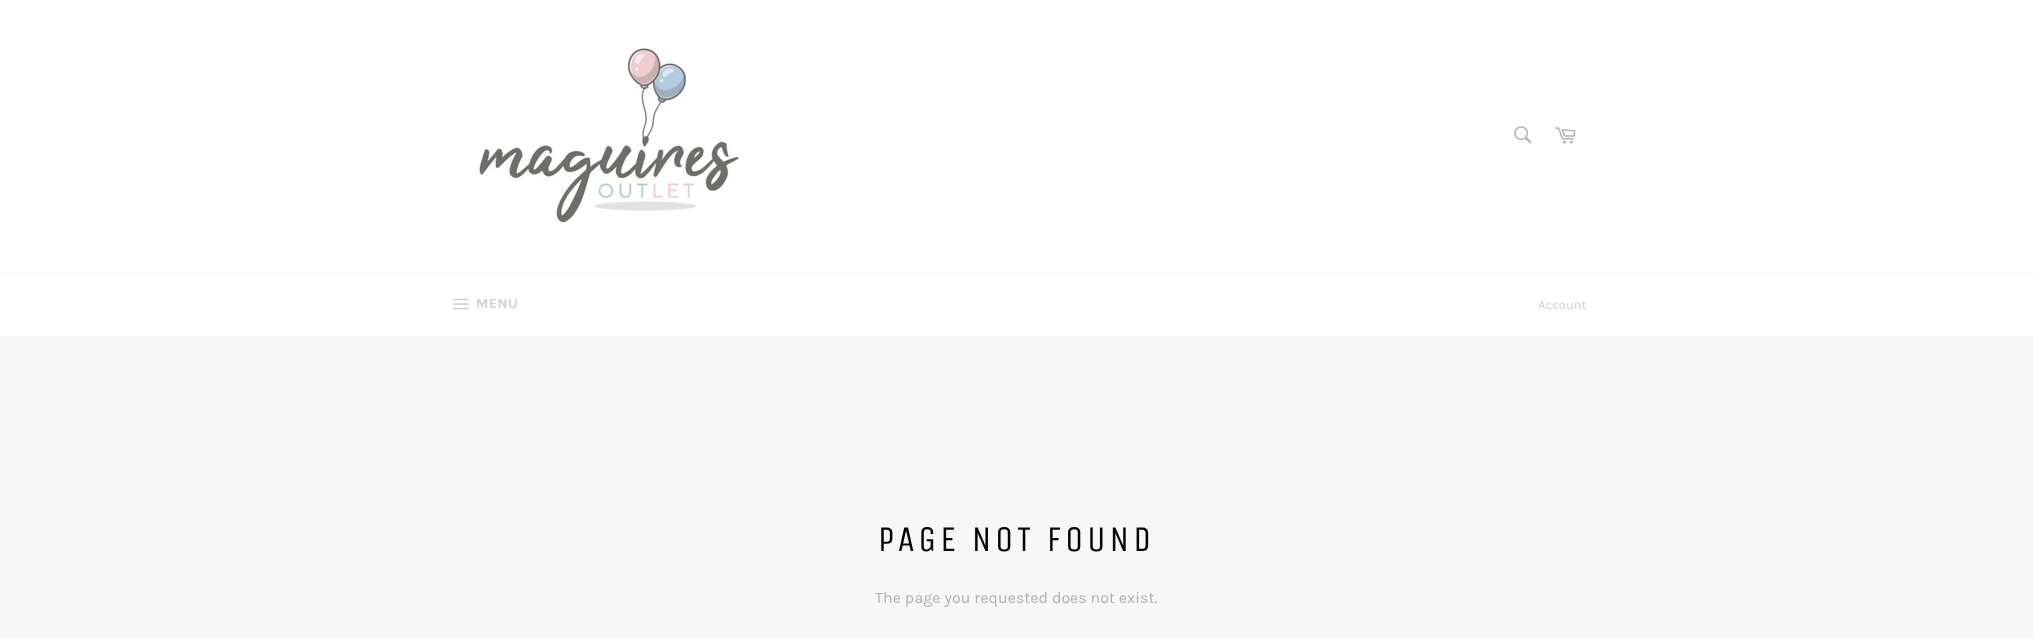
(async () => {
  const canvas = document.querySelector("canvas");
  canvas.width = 2033;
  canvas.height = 638;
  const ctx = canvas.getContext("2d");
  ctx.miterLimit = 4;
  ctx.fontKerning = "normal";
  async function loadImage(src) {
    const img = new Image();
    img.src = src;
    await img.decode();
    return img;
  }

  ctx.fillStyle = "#f7f7f7";
  ctx.fillRect(0, 0, 2033, 638);
  ctx.fillStyle = "#ffffff";
  ctx.fillRect(0, 0, 2033, 273);
  ctx.drawImage(await loadImage("img/1.png"), 479, 48, 260, 176);
  ctx.drawImage(await loadImage("img/2.png"), 1514, 126, 18, 18);
  ctx.drawImage(await loadImage("img/3.png"), 1554, 127, 22, 17);
  ctx.fillRect(0, 274, 2033, 62);
  ctx.fillStyle = "#f2f2f2";
  ctx.fillRect(0, 273, 2033, 1);
  ctx.drawImage(await loadImage("img/4.png"), 453, 298, 16, 12);
  ctx.letterSpacing = "0.5px";
  ctx.font = "bold 14px Karla";
  ctx.fillStyle = "#d3ced0";
  ctx.fillText("MENU", 476, 308);
  ctx.letterSpacing = "0px";
  ctx.font = "13px Karla";
  ctx.fillText("Account", 1538, 309);
  ctx.letterSpacing = "3.6px";
  ctx.font = "36px Unica One";
  ctx.fillStyle = "#030303";
  ctx.fillText("PAGE NOT FOUND", 878, 551);
  ctx.letterSpacing = "0px";
  ctx.font = "16px Karla";
  ctx.fillStyle = "#b5adb0";
  ctx.fillText("The page you requested does not exist.", 875, 603);
})();
